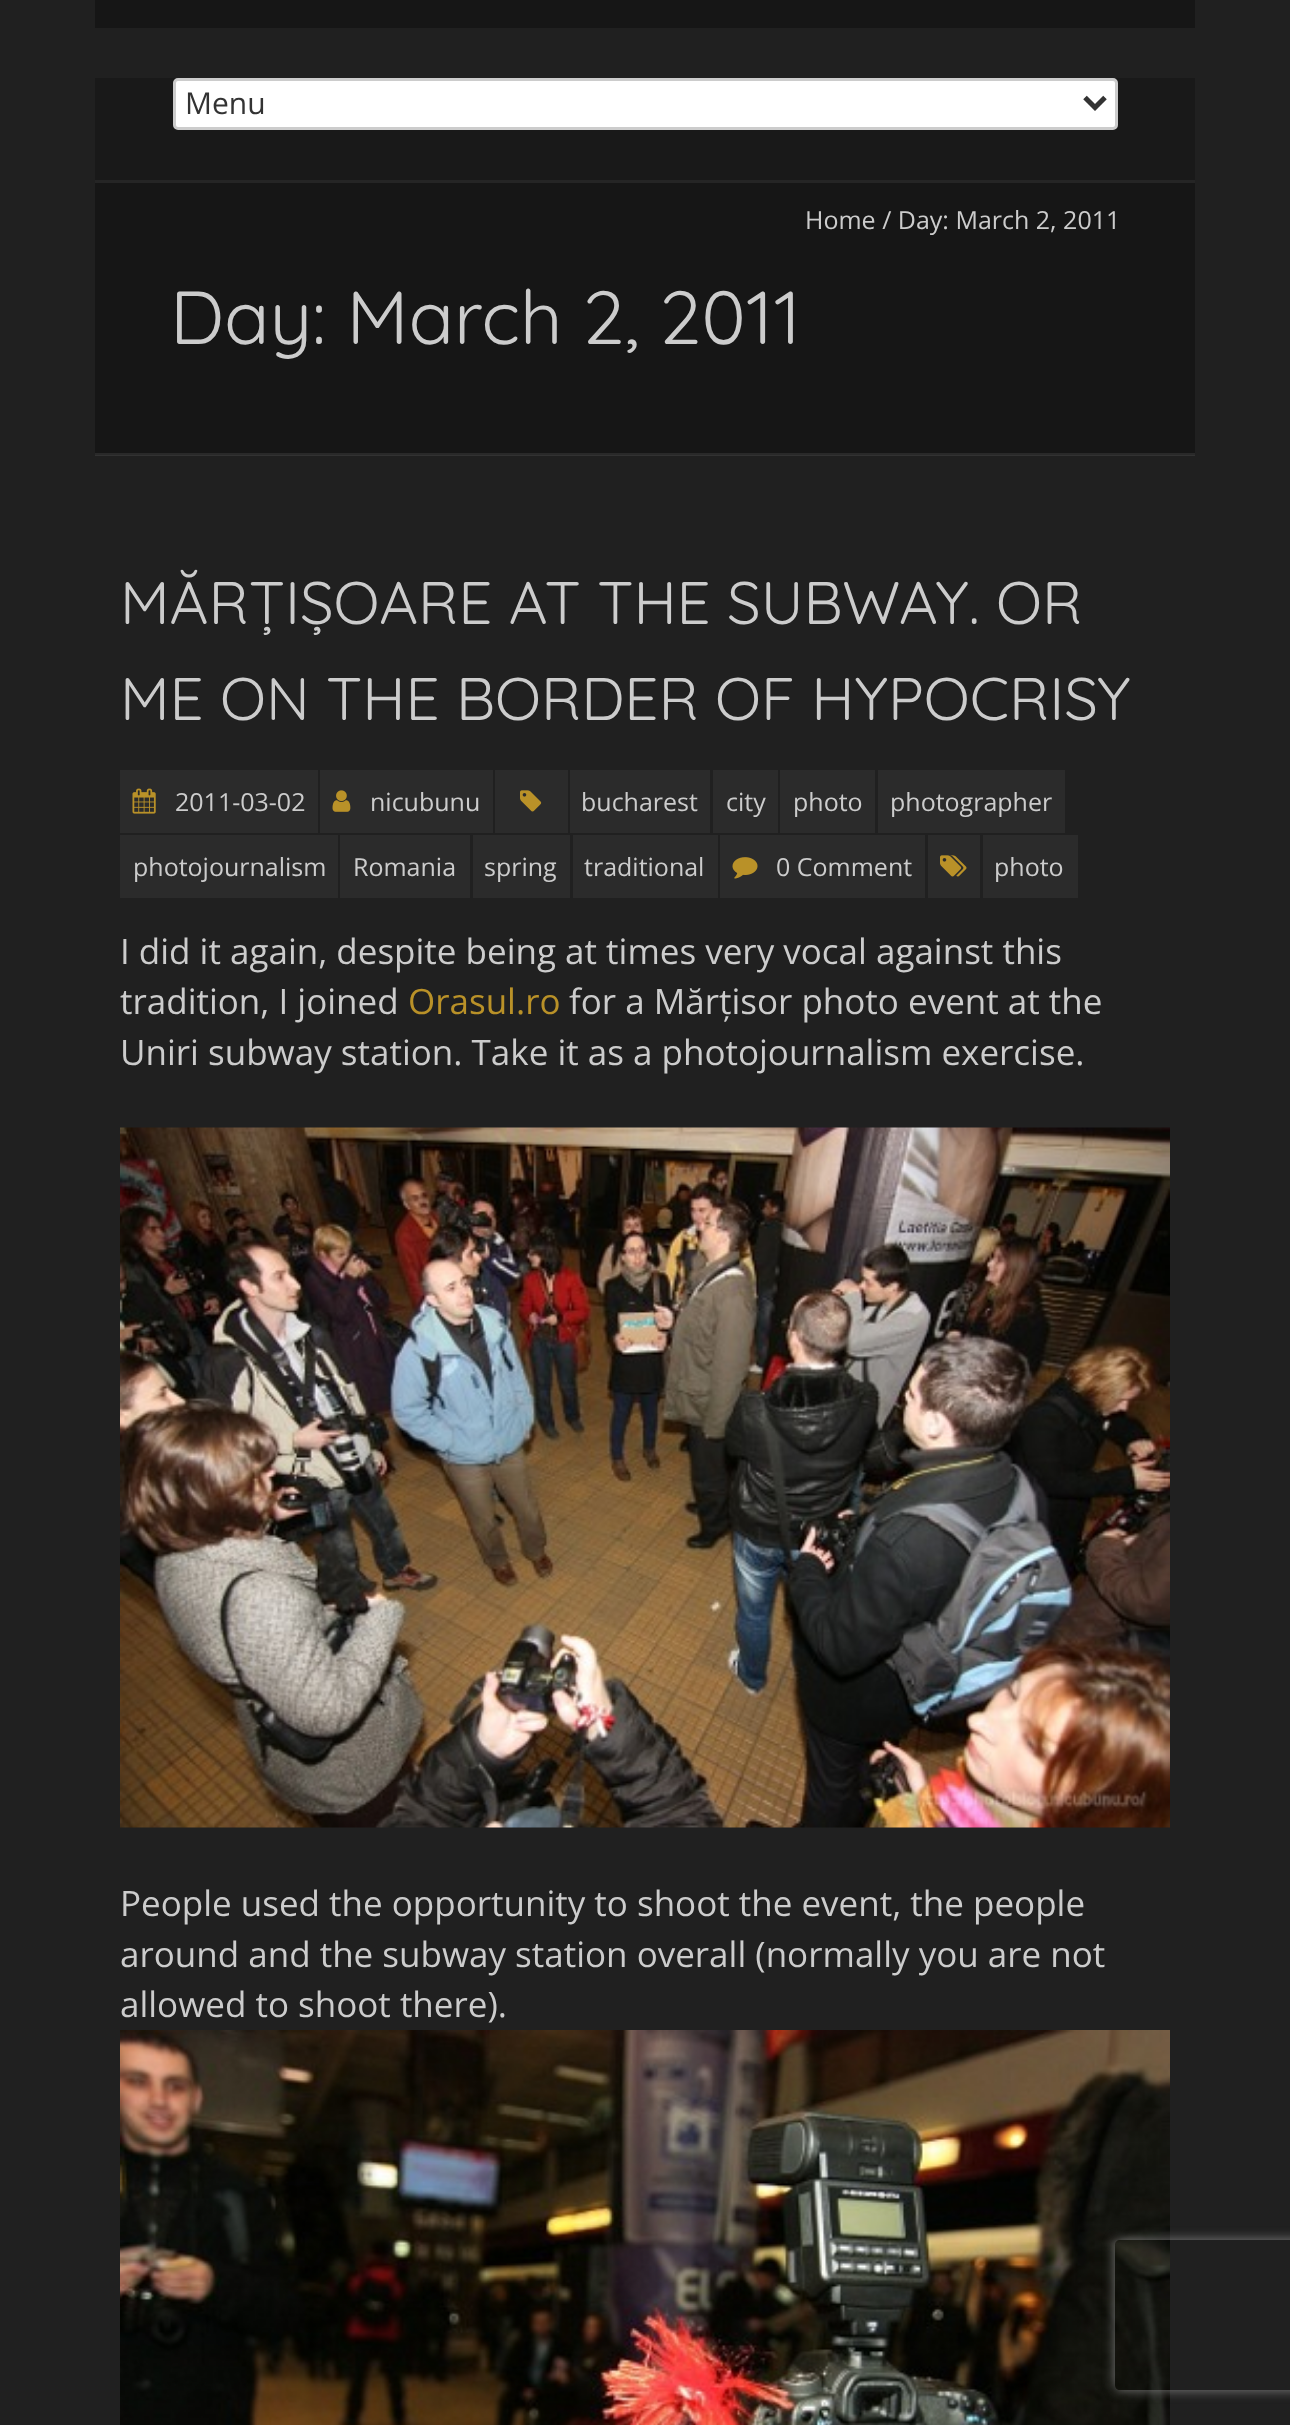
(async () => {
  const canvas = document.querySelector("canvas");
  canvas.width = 1290;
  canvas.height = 2425;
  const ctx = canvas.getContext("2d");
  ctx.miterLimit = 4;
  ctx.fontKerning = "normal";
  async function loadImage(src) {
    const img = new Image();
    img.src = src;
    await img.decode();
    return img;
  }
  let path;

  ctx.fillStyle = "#202020";
  ctx.fillRect(0, 0, 1290, 2425);
  for (const [x, y, w, h, color] of [
    [95, 455, 1100, 1, "#323232"],
    [95, 0, 1100, 28, "#161616"],
    [95, 78, 1100, 102, "#191919"],
    [95, 180, 1100, 3, "#252525"],
  ]) {
    ctx.fillStyle = color;
    ctx.fillRect(x, y, w, h);
  }
  ctx.fillStyle = "#ffffff";
  ctx.beginPath();
  ctx.roundRect(174.5, 79.5, 942, 49, 3.5);
  ctx.fill();
  ctx.strokeStyle = "#cccccc";
  ctx.lineWidth = 3;
  ctx.stroke();
  path = new Path2D("M1085 97.5L1095 107.5L1105 97.5");
  ctx.strokeStyle = "#333333";
  ctx.lineWidth = 5;
  ctx.stroke(path);
  for (const [x, y, w, h, color] of [
    [95, 183, 1100, 270, "#161616"],
    [95, 453, 1100, 2, "#292929"],
    [495, 770, 73, 63, "#2b2b2b"],
  ]) {
    ctx.fillStyle = color;
    ctx.fillRect(x, y, w, h);
  }
  ctx.drawImage(await loadImage("img/1.png"), 520, 790, 22, 22);
  for (const [x, y, w, h, color] of [
    [570, 770, 140, 63, "#2b2b2b"],
    [713, 770, 65, 63, "#2b2b2b"],
    [780, 770, 95, 63, "#2b2b2b"],
    [878, 770, 187, 63, "#2b2b2b"],
    [120, 835, 218, 63, "#2b2b2b"],
    [340, 835, 130, 63, "#2b2b2b"],
    [473, 835, 97, 63, "#2b2b2b"],
    [573, 835, 145, 63, "#2b2b2b"],
    [120, 770, 198, 63, "#2b2b2b"],
  ]) {
    ctx.fillStyle = color;
    ctx.fillRect(x, y, w, h);
  }
  ctx.drawImage(await loadImage("img/2.png"), 132, 788, 24, 26);
  ctx.fillRect(320, 770, 173, 63);
  ctx.drawImage(await loadImage("img/3.png"), 332, 790, 19, 22);
  ctx.fillRect(720, 835, 205, 63);
  ctx.drawImage(await loadImage("img/4.png"), 732, 857, 26, 22);
  ctx.fillRect(928, 835, 52, 63);
  ctx.drawImage(await loadImage("img/5.png"), 940, 855, 27, 22);
  ctx.fillRect(983, 835, 95, 63);
  ctx.drawImage(await loadImage("img/6.png"), 120, 1127, 1050, 701);
  ctx.drawImage(await loadImage("img/7.png"), 120, 2030, 1050, 395);
  ctx.save();
  path = new Path2D("M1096 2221H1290V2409H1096ZM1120 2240H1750C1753 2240 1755 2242 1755 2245V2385C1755 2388 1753 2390 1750 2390H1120C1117 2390 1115 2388 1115 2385V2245C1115 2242 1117 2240 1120 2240Z");
  ctx.clip(path, "evenodd");
  ctx.fillStyle = "#808080";
  ctx.filter = "blur(6px)";
  ctx.beginPath();
  ctx.roundRect(1115, 2240, 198, 150, 5);
  ctx.fill();
  ctx.filter = "none";
  ctx.restore();
  ctx.font = "30px Open Sans";
  ctx.fillStyle = "#333333";
  ctx.fillText("Menu", 185, 114);
  ctx.font = "25px Open Sans";
  ctx.fillStyle = "#cccccc";
  ctx.fillText("Home / Day: March 2, 2011", 805, 229);
  ctx.font = "75px Quicksand";
  ctx.fillText("Day: March 2, 2011", 170, 344);
  ctx.font = "60px Quicksand";
  ctx.fillText("MĂRȚIȘOARE AT THE SUBWAY. OR", 120, 624);
  ctx.fillText("ME ON THE BORDER OF HYPOCRISY", 120, 720);
  ctx.font = "25px Open Sans";
  for (const [text, x, y] of [
    ["bucharest", 581, 811],
    ["city", 726, 811],
    ["photo", 793, 811],
    ["photographer", 890, 811],
    ["photojournalism", 133, 876],
    ["Romania", 353, 876],
    ["spring", 484, 876],
    ["traditional", 584, 876],
    ["2011-03-02", 175, 811],
    ["nicubunu", 370, 811],
    ["0 Comment", 776, 876],
    ["photo", 994, 876],
  ]) {
    ctx.fillText(text, x, y);
  }
  ctx.font = "35px Open Sans";
  ctx.fillText("I did it again, despite being at times very vocal against this", 120, 964);
  ctx.fillText("tradition, I joined", 120, 1014);
  ctx.fillStyle = "#b99128";
  ctx.fillText("Orasul.ro", 408, 1014);
  ctx.fillStyle = "#cccccc";
  for (const [text, x, y] of [
    ["for a Mărțisor photo event at the", 569, 1014],
    ["Uniri subway station. Take it as a photojournalism exercise.", 120, 1065],
    ["People used the opportunity to shoot the event, the people", 120, 1916],
    ["around and the subway station overall (normally you are not", 120, 1967],
    ["allowed to shoot there).", 120, 2017],
  ]) {
    ctx.fillText(text, x, y);
  }
})();
